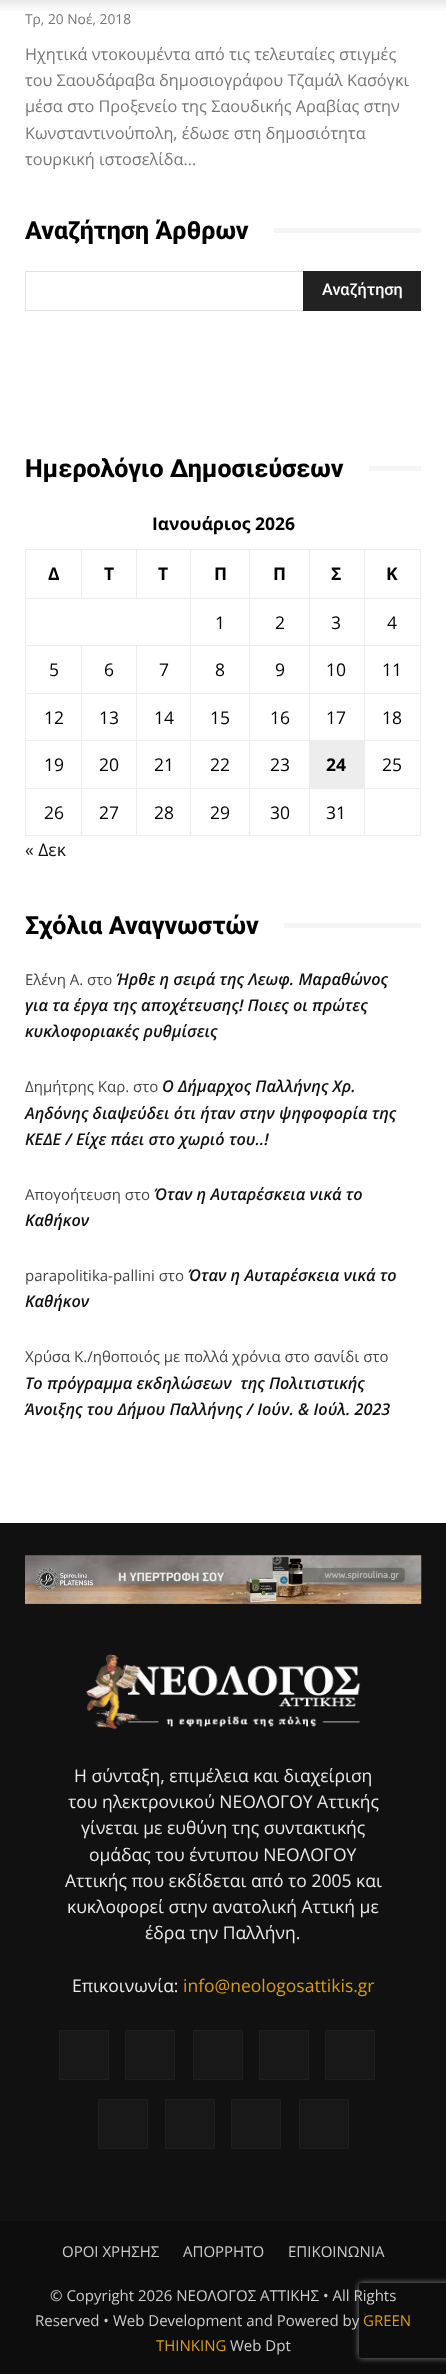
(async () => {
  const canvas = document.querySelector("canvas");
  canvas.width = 446;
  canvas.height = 2374;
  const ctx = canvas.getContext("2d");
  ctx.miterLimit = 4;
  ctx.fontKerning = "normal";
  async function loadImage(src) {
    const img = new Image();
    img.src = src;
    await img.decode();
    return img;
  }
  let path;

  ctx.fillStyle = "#ffffff";
  ctx.fillRect(0, 0, 446, 2374);
  ctx.drawImage(await loadImage("img/1.png"), 0, 0, 446, 11);
  for (const [x, y, w, h, color] of [
    [274, 228, 147, 5, "#f5f5f5"],
    [25, 271, 278, 1, "#e1e1e1"],
    [25, 310, 278, 1, "#e1e1e1"],
    [25, 271, 1, 40, "#e1e1e1"],
    [303, 271, 118, 40, "#222222"],
    [369, 466, 52, 5, "#f5f5f5"],
    [364, 549, 57, 1, "#ededed"],
    [364, 598, 57, 1, "#ededed"],
    [364, 645, 57, 1, "#ededed"],
    [364, 693, 57, 1, "#ededed"],
    [364, 740, 57, 1, "#ededed"],
    [364, 788, 57, 1, "#ededed"],
    [420, 788, 1, 48, "#ededed"],
    [364, 835, 57, 1, "#ededed"],
    [364, 788, 1, 48, "#ededed"],
    [309, 788, 56, 1, "#ededed"],
    [364, 740, 1, 49, "#ededed"],
    [364, 693, 1, 48, "#ededed"],
    [309, 693, 56, 1, "#ededed"],
    [364, 645, 1, 49, "#ededed"],
    [309, 645, 56, 1, "#ededed"],
    [364, 598, 1, 48, "#ededed"],
    [309, 598, 56, 1, "#ededed"],
    [364, 549, 1, 50, "#ededed"],
    [309, 549, 56, 1, "#ededed"],
    [309, 740, 55, 48, "#ededed"],
    [249, 740, 61, 1, "#ededed"],
    [309, 693, 1, 48, "#ededed"],
    [249, 693, 61, 1, "#ededed"],
    [309, 645, 1, 49, "#ededed"],
    [249, 645, 61, 1, "#ededed"],
    [309, 598, 1, 48, "#ededed"],
    [249, 598, 61, 1, "#ededed"],
    [309, 549, 1, 50, "#ededed"],
    [249, 549, 61, 1, "#ededed"],
    [309, 835, 56, 1, "#ededed"],
    [309, 788, 1, 48, "#ededed"],
    [249, 788, 61, 1, "#ededed"],
    [249, 835, 61, 1, "#ededed"],
    [249, 788, 1, 48, "#ededed"],
    [190, 788, 60, 1, "#ededed"],
    [249, 740, 1, 49, "#ededed"],
    [190, 740, 60, 1, "#ededed"],
    [249, 693, 1, 48, "#ededed"],
    [190, 693, 60, 1, "#ededed"],
    [249, 645, 1, 49, "#ededed"],
    [190, 645, 60, 1, "#ededed"],
    [249, 598, 1, 48, "#ededed"],
    [190, 598, 60, 1, "#ededed"],
    [249, 549, 1, 50, "#ededed"],
    [190, 549, 60, 1, "#ededed"],
    [190, 835, 60, 1, "#ededed"],
    [190, 788, 1, 48, "#ededed"],
    [136, 788, 55, 1, "#ededed"],
    [190, 740, 1, 49, "#ededed"],
    [136, 740, 55, 1, "#ededed"],
    [190, 693, 1, 48, "#ededed"],
    [136, 693, 55, 1, "#ededed"],
    [190, 645, 1, 49, "#ededed"],
    [136, 645, 55, 1, "#ededed"],
    [190, 598, 1, 48, "#ededed"],
    [25, 598, 166, 1, "#ededed"],
    [190, 549, 1, 50, "#ededed"],
    [136, 549, 55, 1, "#ededed"],
    [136, 549, 1, 50, "#ededed"],
    [81, 549, 57, 1, "#ededed"],
    [81, 549, 1, 50, "#ededed"],
    [25, 549, 58, 1, "#ededed"],
    [136, 835, 55, 1, "#ededed"],
    [136, 788, 1, 48, "#ededed"],
    [81, 788, 57, 1, "#ededed"],
    [136, 740, 1, 49, "#ededed"],
    [81, 740, 57, 1, "#ededed"],
    [136, 693, 1, 48, "#ededed"],
    [81, 693, 57, 1, "#ededed"],
    [136, 645, 1, 49, "#ededed"],
    [81, 645, 57, 1, "#ededed"],
    [81, 835, 57, 1, "#ededed"],
    [81, 788, 1, 48, "#ededed"],
    [25, 788, 58, 1, "#ededed"],
    [81, 740, 1, 49, "#ededed"],
    [25, 740, 58, 1, "#ededed"],
    [81, 693, 1, 48, "#ededed"],
    [25, 693, 58, 1, "#ededed"],
    [81, 645, 1, 49, "#ededed"],
    [25, 645, 58, 1, "#ededed"],
    [25, 835, 58, 1, "#ededed"],
    [25, 788, 1, 48, "#ededed"],
    [25, 740, 1, 49, "#ededed"],
    [25, 693, 1, 48, "#ededed"],
    [25, 645, 1, 49, "#ededed"],
    [25, 598, 1, 48, "#ededed"],
    [25, 549, 1, 50, "#ededed"],
    [420, 740, 1, 49, "#ededed"],
    [420, 693, 1, 48, "#ededed"],
    [420, 645, 1, 49, "#ededed"],
    [420, 598, 1, 48, "#ededed"],
    [420, 549, 1, 50, "#ededed"],
    [284, 923, 137, 5, "#f5f5f5"],
    [0, 1523, 446, 698, "#111111"],
  ]) {
    ctx.fillStyle = color;
    ctx.fillRect(x, y, w, h);
  }
  ctx.drawImage(await loadImage("img/2.png"), 25, 1555, 397, 49);
  ctx.drawImage(await loadImage("img/3.png"), 86, 1654, 275, 75);
  ctx.fillStyle = "#181818";
  ctx.beginPath();
  ctx.rect(59.5, 2030.5, 49, 49);
  ctx.fill();
  ctx.strokeStyle = "#1f1f1f";
  ctx.stroke();
  ctx.beginPath();
  ctx.rect(125.5, 2030.5, 49, 49);
  ctx.fill();
  ctx.stroke();
  ctx.beginPath();
  ctx.rect(193.5, 2030.5, 49, 49);
  ctx.fill();
  ctx.stroke();
  ctx.beginPath();
  ctx.rect(259.5, 2030.5, 49, 49);
  ctx.fill();
  ctx.stroke();
  ctx.beginPath();
  ctx.rect(325.5, 2030.5, 49, 49);
  ctx.fill();
  ctx.stroke();
  ctx.beginPath();
  ctx.rect(98.5, 2099.5, 49, 49);
  ctx.fill();
  ctx.stroke();
  ctx.beginPath();
  ctx.rect(165.5, 2099.5, 49, 49);
  ctx.fill();
  ctx.stroke();
  ctx.beginPath();
  ctx.rect(231.5, 2099.5, 49, 49);
  ctx.fill();
  ctx.stroke();
  ctx.beginPath();
  ctx.rect(299.5, 2099.5, 49, 49);
  ctx.fill();
  ctx.stroke();
  ctx.fillStyle = "#0d0d0d";
  ctx.fillRect(0, 2221, 446, 153);
  ctx.save();
  path = new Path2D("M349 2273H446V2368H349ZM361.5 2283H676.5C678 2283 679 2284 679 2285.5V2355.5C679 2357 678 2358 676.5 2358H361.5C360 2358 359 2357 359 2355.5V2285.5C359 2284 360 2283 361.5 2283Z");
  ctx.clip(path, "evenodd");
  ctx.fillStyle = "#808080";
  ctx.filter = "blur(3px)";
  ctx.beginPath();
  ctx.roundRect(359, 2283, 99, 75, 2.5);
  ctx.fill();
  ctx.filter = "none";
  ctx.restore();
  ctx.font = "13.75px Open Sans";
  ctx.fillStyle = "#767676";
  ctx.fillText("Τρ, 20 Νοέ, 2018", 25, 24);
  ctx.font = "16.25px Open Sans";
  for (const [text, x, y] of [
    ["Ηχητικά ντοκουμέντα από τις τελευταίες στιγμές", 25, 60],
    ["του Σαουδάραβα δημοσιογράφου Τζαμάλ Κασόγκι", 25, 86],
    ["μέσα στο Προξενείο της Σαουδικής Αραβίας στην", 25, 112],
    ["Κωνσταντινούπολη, έδωσε στη δημοσιότητα", 25, 139],
    ["τουρκική ιστοσελίδα...", 25, 165],
  ]) {
    ctx.fillText(text, x, y);
  }
  ctx.font = "800 25px Roboto";
  ctx.fillStyle = "#000000";
  ctx.fillText("Αναζήτηση Άρθρων", 25, 239);
  ctx.font = "500 16.25px Roboto";
  ctx.fillStyle = "#ffffff";
  ctx.fillText("Αναζήτηση", 322, 295);
  ctx.font = "800 25px Roboto";
  ctx.fillStyle = "#000000";
  ctx.fillText("Ημερολόγιο Δημοσιεύσεων", 25, 477);
  ctx.font = "bold 17.5px Open Sans";
  for (const [text, x, y] of [
    ["Ιανουάριος 2026", 152, 530],
    ["Δ", 48, 580],
    ["Τ", 104, 580],
    ["Τ", 158, 580],
    ["Π", 214, 580],
    ["Π", 273, 580],
    ["Σ", 331, 580],
    ["Κ", 386, 580],
  ]) {
    ctx.fillText(text, x, y);
  }
  ctx.font = "17.5px Open Sans";
  for (const [text, x, y] of [
    ["1", 215, 629],
    ["2", 275, 629],
    ["3", 331, 629],
    ["4", 387, 629],
    ["5", 49, 676],
    ["6", 104, 676],
    ["7", 159, 676],
    ["8", 215, 676],
    ["9", 275, 676],
    ["10", 326, 676],
    ["11", 382, 676],
    ["12", 44, 724],
    ["13", 99, 724],
    ["14", 154, 724],
    ["15", 210, 724],
    ["16", 270, 724],
    ["17", 326, 724],
    ["18", 382, 724],
    ["19", 44, 771],
    ["20", 99, 771],
    ["21", 154, 771],
    ["22", 210, 771],
    ["23", 270, 771],
  ]) {
    ctx.fillText(text, x, y);
  }
  ctx.font = "bold 17.5px Open Sans";
  ctx.fillText("24", 326, 771);
  ctx.font = "17.5px Open Sans";
  for (const [text, x, y] of [
    ["25", 382, 771],
    ["26", 44, 819],
    ["27", 99, 819],
    ["28", 154, 819],
    ["29", 210, 819],
    ["30", 270, 819],
    ["31", 326, 819],
  ]) {
    ctx.fillText(text, x, y);
  }
  ctx.fillStyle = "#111111";
  ctx.fillText("« Δεκ", 25, 856);
  ctx.font = "800 25px Roboto";
  ctx.fillStyle = "#000000";
  ctx.fillText("Σχόλια Αναγνωστών", 25, 934);
  ctx.font = "15px Open Sans";
  ctx.fillStyle = "#444444";
  ctx.fillText("Ελένη Α. στο", 25, 985);
  ctx.font = "italic 600 16.25px Open Sans";
  ctx.fillStyle = "#111111";
  for (const [text, x, y] of [
    ["Ήρθε η σειρά της Λεωφ. Μαραθώνος", 116, 985],
    ["για τα έργα της αποχέτευσης! Ποιες οι πρώτες", 25, 1011],
    ["κυκλοφοριακές ρυθμίσεις", 25, 1037],
  ]) {
    ctx.fillText(text, x, y);
  }
  ctx.font = "15px Open Sans";
  ctx.fillStyle = "#444444";
  ctx.fillText("Δημήτρης Καρ. στο", 25, 1092);
  ctx.font = "italic 600 16.25px Open Sans";
  ctx.fillStyle = "#111111";
  for (const [text, x, y] of [
    ["Ο Δήμαρχος Παλλήνης Χρ.", 162, 1092],
    ["Αηδόνης διαψεύδει ότι ήταν στην ψηφοφορία της", 25, 1119],
    ["ΚΕΔΕ / Είχε πάει στο χωριό του..!", 25, 1145],
  ]) {
    ctx.fillText(text, x, y);
  }
  ctx.font = "15px Open Sans";
  ctx.fillStyle = "#444444";
  ctx.fillText("Απογοήτευση στο", 25, 1200);
  ctx.font = "italic 600 16.25px Open Sans";
  ctx.fillStyle = "#111111";
  ctx.fillText("Όταν η Αυταρέσκεια νικά το", 154, 1200);
  ctx.fillText("Καθήκον", 25, 1226);
  ctx.font = "15px Open Sans";
  ctx.fillStyle = "#444444";
  ctx.fillText("parapolitika-pallini στο", 25, 1281);
  ctx.font = "italic 600 16.25px Open Sans";
  ctx.fillStyle = "#111111";
  ctx.fillText("Όταν η Αυταρέσκεια νικά το", 188, 1281);
  ctx.fillText("Καθήκον", 25, 1307);
  ctx.font = "15px Open Sans";
  ctx.fillStyle = "#444444";
  ctx.fillText("Χρύσα Κ./ηθοποιός με πολλά χρόνια στο σανίδι στο", 25, 1362);
  ctx.font = "italic 600 16.25px Open Sans";
  ctx.fillStyle = "#111111";
  ctx.fillText("Tο πρόγραμμα εκδηλώσεων  της Πολιτιστικής", 25, 1389);
  ctx.fillText("Άνοιξης του Δήμου Παλλήνης / Ιούν. & Ιούλ. 2023", 25, 1415);
  ctx.font = "17.5px Open Sans";
  ctx.fillStyle = "#eaeaea";
  for (const [text, x, y] of [
    ["Η σύνταξη, επιμέλεια και διαχείριση", 74, 1782],
    ["του ηλεκτρονικού ΝΕΟΛΟΓΟΥ Αττικής", 68, 1808],
    ["γίνεται με ευθύνη της συντακτικής", 81, 1834],
    ["ομάδας του έντυπου ΝΕΟΛΟΓΟΥ", 89, 1861],
    ["Αττικής που εκδίδεται από το 2005 και", 65, 1887],
    ["κυκλοφορεί στην ανατολική Αττική με", 67, 1913],
    ["έδρα την Παλλήνη.", 145, 1939],
    ["Επικοινωνία:", 72, 1992],
  ]) {
    ctx.fillText(text, x, y);
  }
  ctx.fillStyle = "#da9d10";
  ctx.fillText("info@neologosattikis.gr", 183, 1992);
  ctx.font = "15px Open Sans";
  ctx.fillStyle = "#cccccc";
  for (const [text, x, y] of [
    ["ΟΡΟΙ ΧΡΗΣΗΣ", 62, 2257],
    ["ΑΠΟΡΡΗΤΟ", 183, 2257],
    ["ΕΠΙΚΟΙΝΩΝΙΑ", 288, 2257],
    ["© Copyright 2026 ΝΕΟΛΟΓΟΣ ΑΤΤΙΚΗΣ • All Rights", 50, 2301],
    ["Reserved • Web Development and Powered by", 35, 2326],
  ]) {
    ctx.fillText(text, x, y);
  }
  ctx.fillStyle = "#da9d10";
  ctx.fillText("GREEN", 363, 2326);
  ctx.fillText("THINKING", 156, 2351);
  ctx.fillStyle = "#cccccc";
  ctx.fillText("Web Dpt", 230, 2351);
})();
